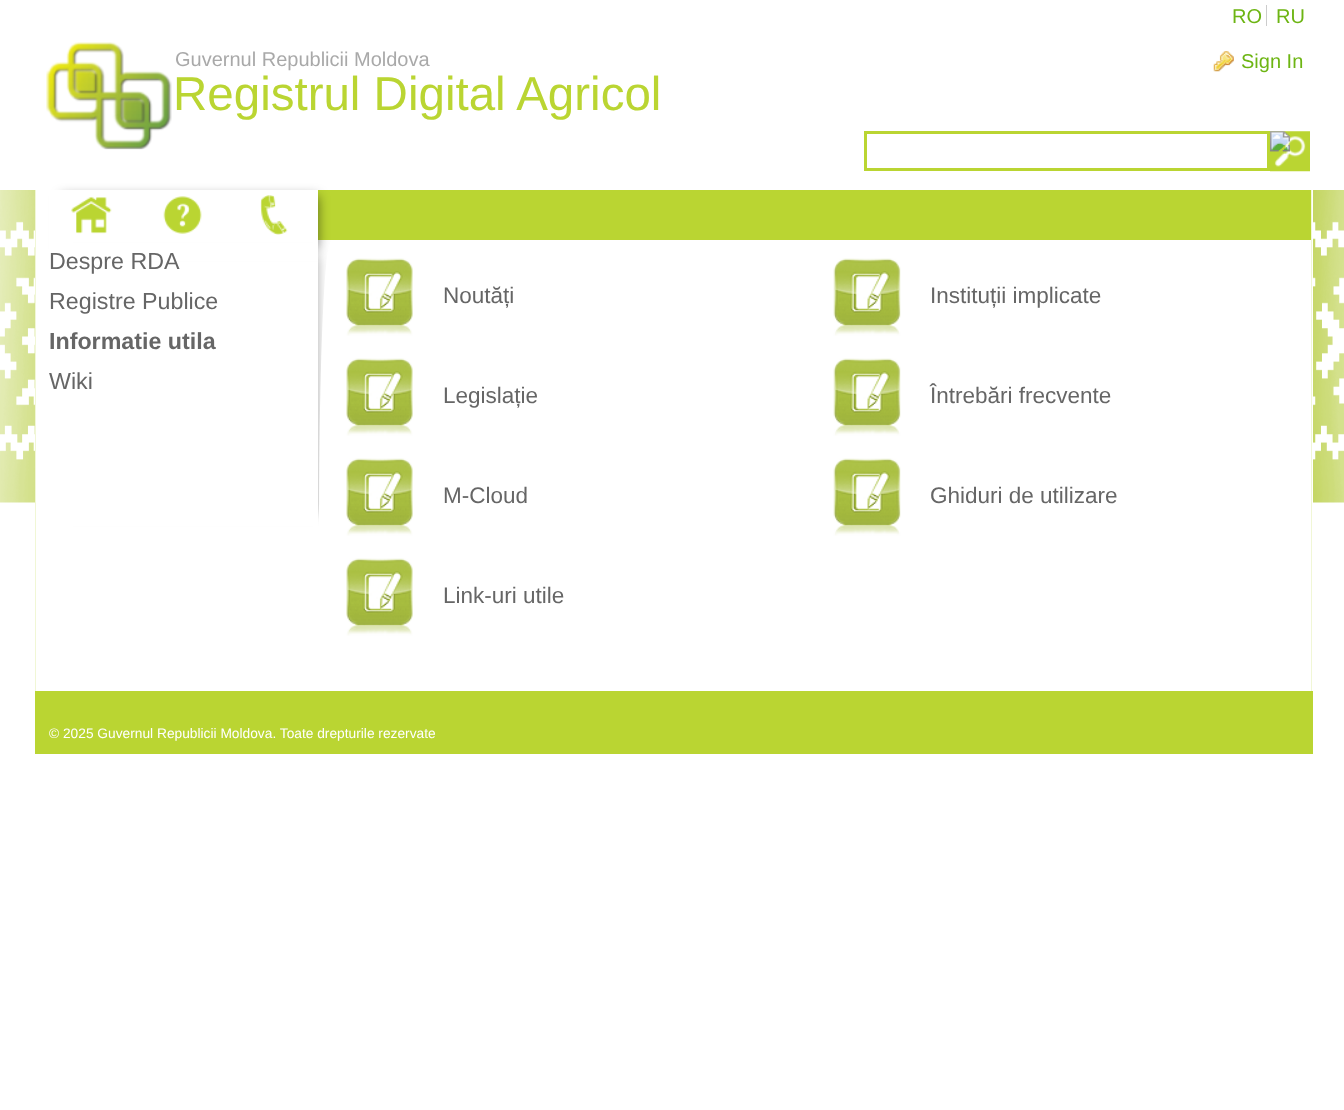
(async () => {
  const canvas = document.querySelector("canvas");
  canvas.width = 1344;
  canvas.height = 1110;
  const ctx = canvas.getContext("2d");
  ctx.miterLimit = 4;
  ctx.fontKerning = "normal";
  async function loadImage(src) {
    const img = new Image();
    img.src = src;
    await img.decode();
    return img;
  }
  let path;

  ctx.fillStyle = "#ffffff";
  ctx.fillRect(0, 0, 1344, 1110);
  ctx.drawImage(await loadImage("img/10.png"), 0, 190, 1344, 313);
  for (const [x, y, w, h, color] of [
    [36, 190, 1277, 313, "#ffffff"],
    [1311, 190, 1, 501, "#f1f7d6"],
    [35, 190, 1, 501, "#f1f7d6"],
    [1266, 5, 1, 21, "#cccccc"],
    [318, 190, 993, 50, "#bad532"],
  ]) {
    ctx.fillStyle = color;
    ctx.fillRect(x, y, w, h);
  }
  ctx.fillStyle = "rgba(0, 0, 0, 0.5)";
  ctx.filter = "blur(6px)";
  ctx.beginPath();
  ctx.rect(61, 196, 257, 53);
  ctx.fill();
  ctx.filter = "none";
  ctx.fillStyle = "#ffffff";
  ctx.fillRect(49, 190, 269, 71);
  ctx.save();
  path = new Path2D("M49 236H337V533H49ZM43 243H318V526H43Z");
  ctx.clip(path, "evenodd");
  ctx.fillStyle = "rgba(0, 0, 0, 0.33)";
  ctx.filter = "blur(6px)";
  ctx.beginPath();
  ctx.rect(68, 255, 250, 259);
  ctx.fill();
  ctx.filter = "none";
  ctx.restore();
  path = new Path2D("M331 242V526H319C319 370 324 242 331 242Z");
  ctx.fill(path);
  ctx.drawImage(await loadImage("img/1.png"), 346, 258, 67, 78);
  ctx.drawImage(await loadImage("img/1.png"), 346, 358, 67, 78);
  ctx.drawImage(await loadImage("img/1.png"), 346, 458, 67, 78);
  ctx.drawImage(await loadImage("img/1.png"), 346, 558, 67, 78);
  ctx.drawImage(await loadImage("img/2.png"), 833, 258, 68, 78);
  ctx.drawImage(await loadImage("img/2.png"), 833, 358, 68, 78);
  ctx.drawImage(await loadImage("img/2.png"), 833, 458, 68, 78);
  ctx.drawImage(await loadImage("img/3.png"), 71, 196, 41, 38);
  ctx.drawImage(await loadImage("img/4.png"), 163, 196, 39, 38);
  ctx.drawImage(await loadImage("img/5.png"), 260, 195, 28, 40);
  ctx.drawImage(await loadImage("img/6.png"), 46, 42, 126, 108);
  ctx.drawImage(await loadImage("img/7.png"), 1213, 51, 21, 21);
  ctx.strokeStyle = "#bad532";
  ctx.lineWidth = 3;
  ctx.strokeRect(865.5, 132.5, 403, 37);
  ctx.drawImage(await loadImage("img/8.png"), 1270, 131, 40, 41);
  ctx.drawImage(await loadImage("img/9.png"), 1270, 131, 20, 21);
  ctx.fillStyle = "#bad532";
  ctx.fillRect(35, 691, 1278, 63);
  ctx.font = "20px Liberation Sans";
  ctx.fillStyle = "#6db513";
  ctx.fillText("RO", 1232, 23);
  ctx.fillText("RU", 1276, 23);
  ctx.font = "23.25px Liberation Sans";
  ctx.fillStyle = "#666666";
  ctx.fillText("Despre RDA", 49, 269);
  ctx.fillText("Registre Publice", 49, 309);
  ctx.font = "bold 23.25px Liberation Sans";
  ctx.fillText("Informatie utila", 49, 349);
  ctx.font = "23.25px Liberation Sans";
  ctx.fillText("Wiki", 49, 389);
  ctx.font = "22.5px Liberation Sans";
  for (const [text, x, y] of [
    ["Noutăți", 443, 303],
    ["Legislație", 443, 403],
    ["M-Cloud", 443, 503],
    ["Link-uri utile", 443, 603],
    ["Instituții implicate", 930, 303],
    ["Întrebări frecvente", 930, 403],
    ["Ghiduri de utilizare", 930, 503],
  ]) {
    ctx.fillText(text, x, y);
  }
  ctx.font = "20px Liberation Sans";
  ctx.fillStyle = "#a9a9a9";
  ctx.fillText("Guvernul Republicii Moldova", 175, 66);
  ctx.font = "47.5px Liberation Sans";
  ctx.fillStyle = "#bad532";
  ctx.fillText("Registrul Digital Agricol", 173, 110);
  ctx.font = "20px Liberation Sans";
  ctx.fillStyle = "#6db513";
  ctx.fillText("Sign In", 1241, 68);
  ctx.font = "13.75px Liberation Sans";
  ctx.fillStyle = "#ffffff";
  ctx.fillText("© 2025 Guvernul Republicii Moldova. Toate drepturile rezervate", 49, 738);
})();
